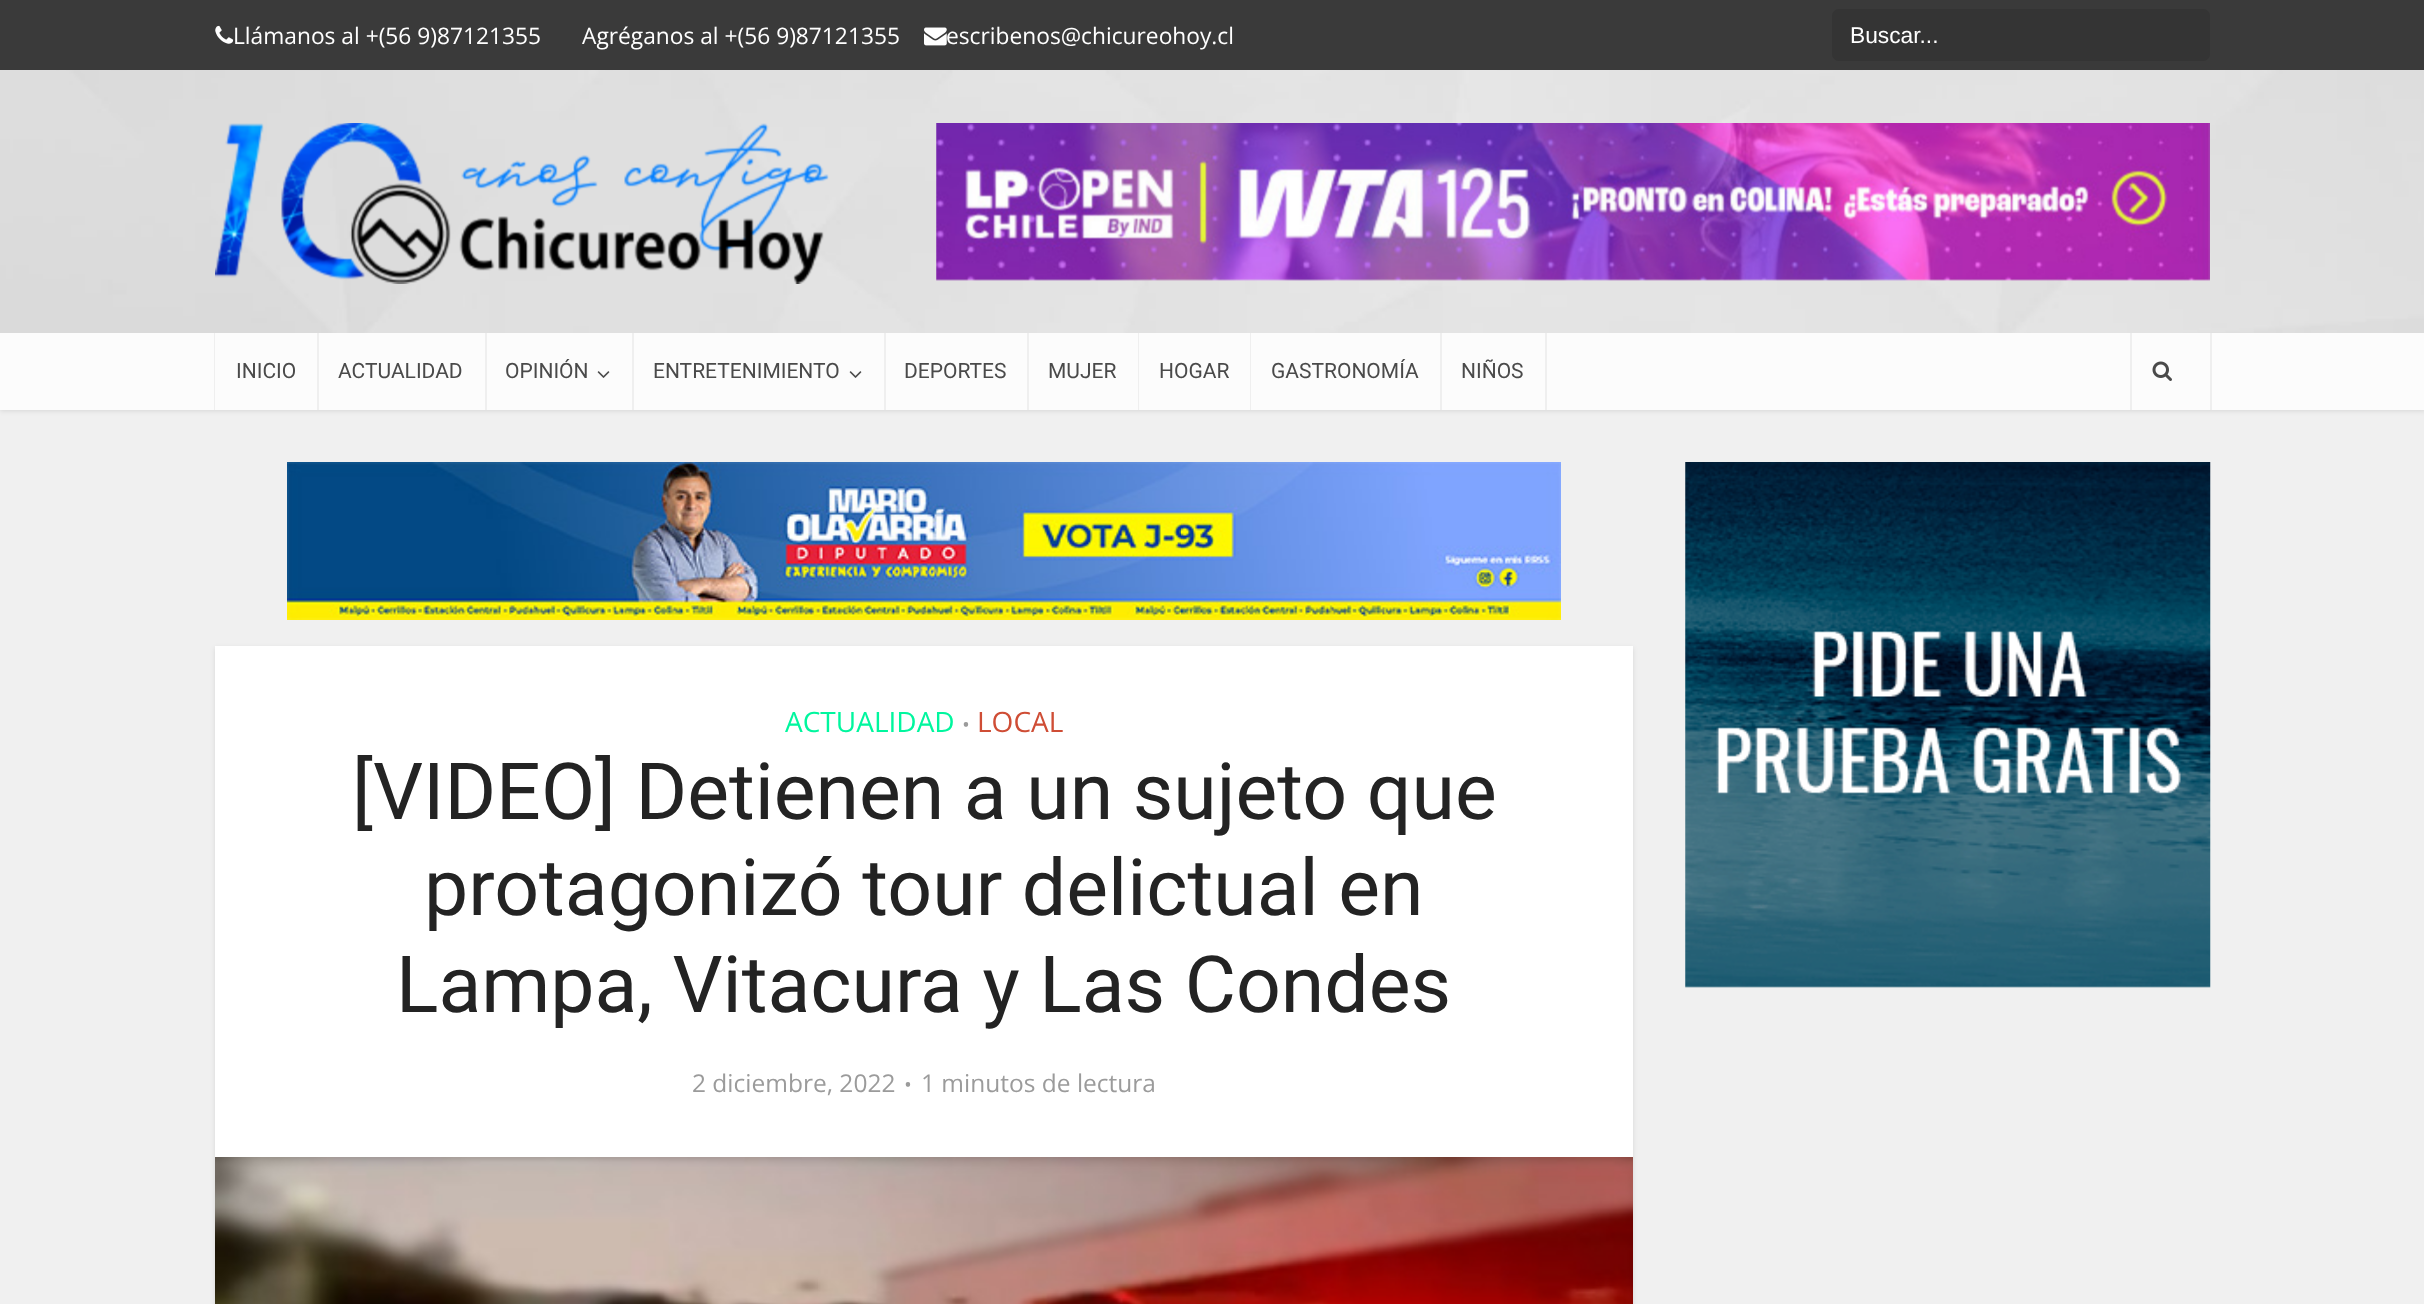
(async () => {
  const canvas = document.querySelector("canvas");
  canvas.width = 2424;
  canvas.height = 1304;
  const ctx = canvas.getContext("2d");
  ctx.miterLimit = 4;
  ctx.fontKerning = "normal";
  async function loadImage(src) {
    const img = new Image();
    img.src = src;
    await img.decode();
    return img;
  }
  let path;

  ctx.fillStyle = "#f0f0f0";
  ctx.fillRect(0, 0, 2424, 1304);
  ctx.fillStyle = "rgba(0, 0, 0, 0.1)";
  ctx.filter = "blur(2.5px)";
  ctx.beginPath();
  ctx.rect(0, 2, 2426, 409);
  ctx.fill();
  ctx.filter = "none";
  ctx.drawImage(await loadImage("img/1.png"), 0, 70, 2424, 263);
  ctx.fillStyle = "#3a3a3a";
  ctx.fillRect(0, 0, 2424, 70);
  ctx.drawImage(await loadImage("img/2.png"), 215, 25, 19, 19);
  ctx.drawImage(await loadImage("img/3.png"), 924, 27, 23, 19);
  ctx.fillStyle = "#343434";
  ctx.beginPath();
  ctx.roundRect(1832, 9, 378, 52, 7);
  ctx.fill();
  ctx.drawImage(await loadImage("img/4.png"), 215, 123, 614, 161);
  ctx.drawImage(await loadImage("img/5.png"), 936, 123, 1274, 158);
  ctx.fillStyle = "#fcfcfc";
  ctx.fillRect(0, 333, 2424, 77);
  ctx.fillStyle = "#efefef";
  path = new Path2D("M217 410H319V333H317V410Z");
  ctx.fill(path);
  path = new Path2D("M214 333V410H315H215V333Z");
  ctx.fill(path);
  path = new Path2D("M319 410H487V333H485V410Z");
  ctx.fill(path);
  path = new Path2D("M487 410H634V333H632V410Z");
  ctx.fill(path);
  ctx.drawImage(await loadImage("img/6.png"), 597, 371, 13, 7);
  path = new Path2D("M634 410H886V333H884V410Z");
  ctx.fill(path);
  ctx.drawImage(await loadImage("img/6.png"), 849, 371, 13, 7);
  path = new Path2D("M886 410H1029V333H1027V410Z");
  ctx.fill(path);
  path = new Path2D("M1029 410H1139V333H1138V410Z");
  ctx.fill(path);
  path = new Path2D("M1139 410H1251V333H1250V410Z");
  ctx.fill(path);
  path = new Path2D("M1251 410H1442V333H1440V410Z");
  ctx.fill(path);
  path = new Path2D("M1442 410H1547V333H1545V410Z");
  ctx.fill(path);
  path = new Path2D("M2133 410H2212V333H2210V410Z");
  ctx.fill(path);
  path = new Path2D("M2130 333V410H2209H2132V333Z");
  ctx.fill(path);
  ctx.drawImage(await loadImage("img/7.png"), 2152, 361, 20, 20);
  ctx.drawImage(await loadImage("img/8.png"), 287, 462, 1274, 158);
  ctx.drawImage(await loadImage("img/9.png"), 1685, 462, 526, 526);
  ctx.fillStyle = "rgba(0, 0, 0, 0.1)";
  ctx.filter = "blur(2.5px)";
  ctx.beginPath();
  ctx.rect(215, 648, 1418, 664);
  ctx.fill();
  ctx.filter = "none";
  ctx.fillStyle = "#ffffff";
  ctx.fillRect(215, 646, 1418, 511);
  ctx.drawImage(await loadImage("img/10.png"), 215, 1157, 1418, 147);
  ctx.font = "22.75px Open Sans";
  for (const [text, x, y] of [
    ["Llámanos al +(56 9)87121355", 233, 44],
    ["Agréganos al +(56 9)87121355", 582, 44],
    ["escribenos@chicureohoy.cl", 946, 44],
  ]) {
    ctx.fillText(text, x, y);
  }
  ctx.font = "22.75px Liberation Sans";
  ctx.fillText("Buscar...", 1850, 43);
  ctx.font = "21px Roboto";
  ctx.fillStyle = "#4a4a4a";
  for (const [text, x, y] of [
    ["INICIO", 236, 378],
    ["ACTUALIDAD", 338, 378],
    ["OPINIÓN", 505, 378],
    ["ENTRETENIMIENTO", 653, 378],
    ["DEPORTES", 904, 378],
    ["MUJER", 1048, 378],
    ["HOGAR", 1159, 378],
    ["GASTRONOMÍA", 1271, 378],
    ["NIÑOS", 1461, 378],
  ]) {
    ctx.fillText(text, x, y);
  }
  ctx.font = "28px Open Sans";
  ctx.fillStyle = "#00f69e";
  ctx.fillText("ACTUALIDAD", 785, 732);
  ctx.font = "21px Open Sans";
  ctx.fillStyle = "#9b9b9b";
  ctx.fillText("•", 962, 732);
  ctx.font = "28px Open Sans";
  ctx.fillStyle = "#cf4d35";
  ctx.fillText("LOCAL", 977, 732);
  ctx.font = "78.75px Roboto";
  ctx.fillStyle = "#232323";
  for (const [text, x, y] of [
    ["[VIDEO] Detienen a un sujeto que", 352, 819],
    ["protagonizó tour delictual en", 424, 915],
    ["Lampa, Vitacura y Las Condes", 396, 1012],
  ]) {
    ctx.fillText(text, x, y);
  }
  ctx.font = "24.5px Open Sans";
  ctx.fillStyle = "#9b9b9b";
  ctx.fillText("2 diciembre, 2022", 692, 1092);
  ctx.font = "21px Open Sans";
  ctx.fillText("•", 904, 1092);
  ctx.font = "24.5px Open Sans";
  ctx.fillText("1 minutos de lectura", 921, 1092);
})();
